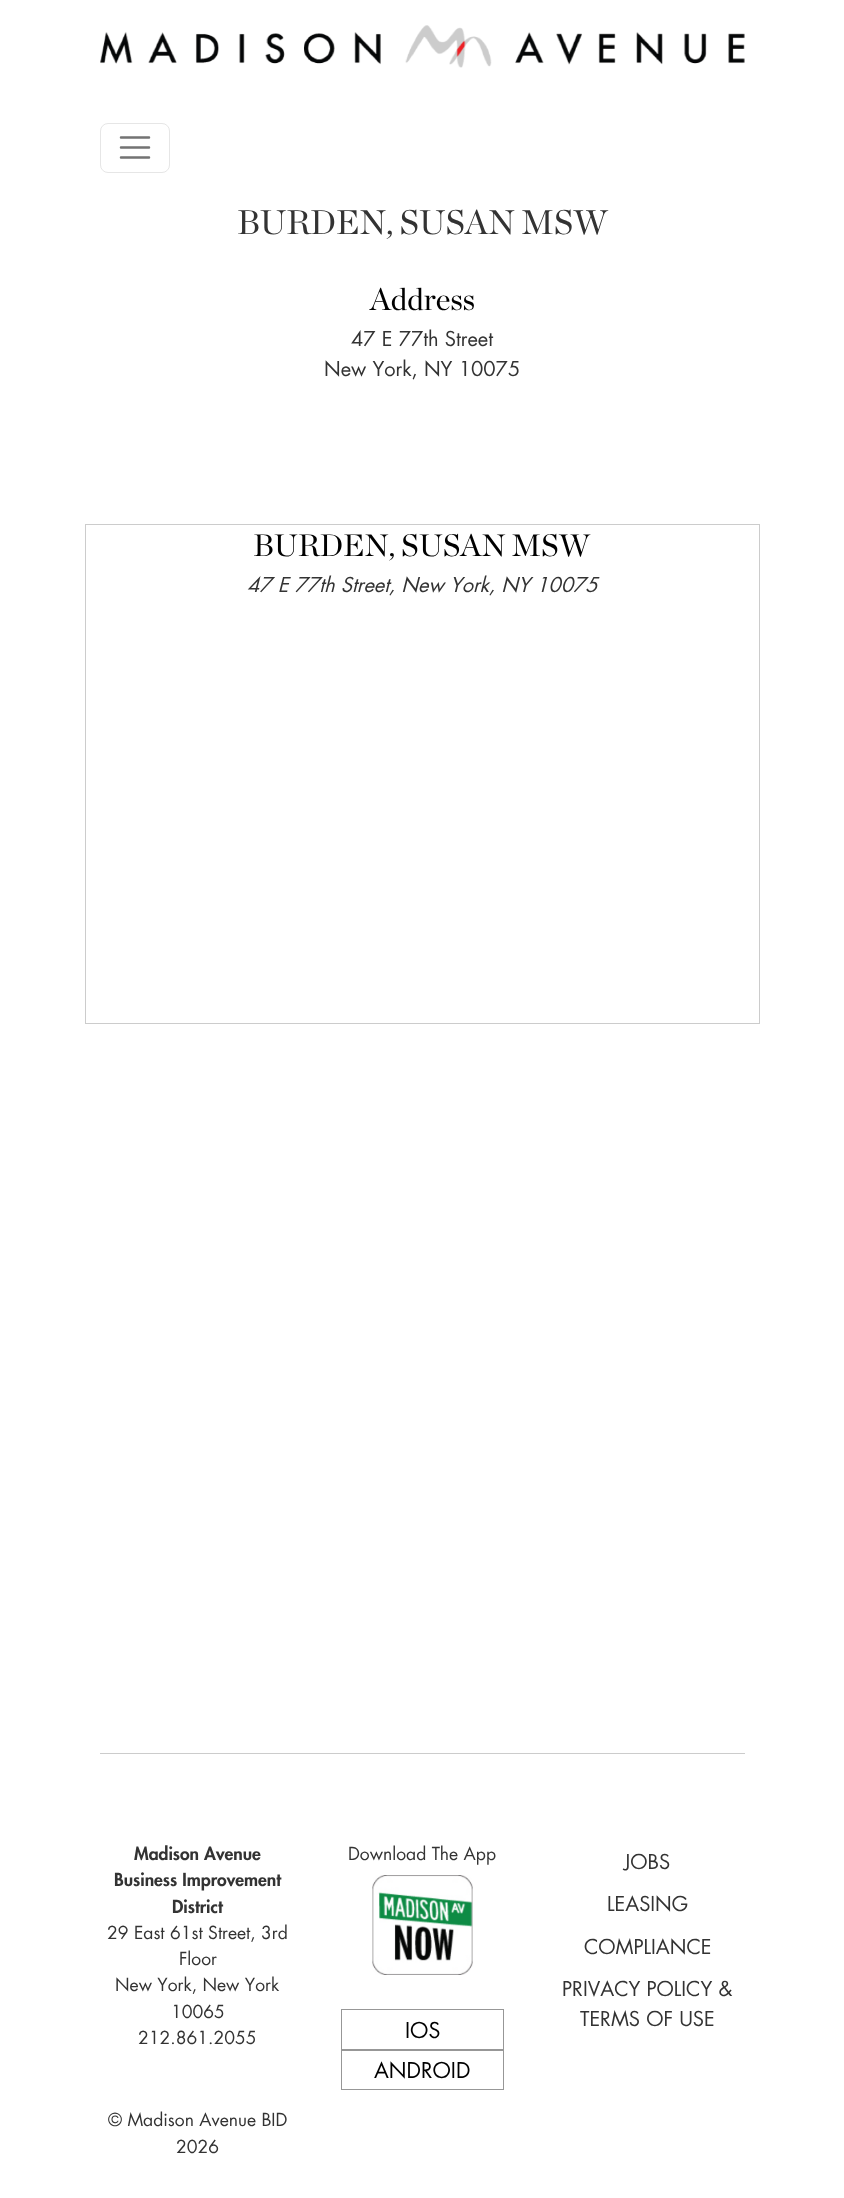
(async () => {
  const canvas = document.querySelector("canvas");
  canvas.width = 844;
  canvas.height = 2198;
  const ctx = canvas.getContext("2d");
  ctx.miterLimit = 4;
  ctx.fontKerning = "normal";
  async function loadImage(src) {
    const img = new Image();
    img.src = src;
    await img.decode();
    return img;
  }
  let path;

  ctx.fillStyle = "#ffffff";
  ctx.fillRect(0, 0, 844, 2198);
  ctx.drawImage(await loadImage("img/1.png"), 100, 25, 645, 43);
  ctx.beginPath();
  ctx.roundRect(100.5, 123.5, 69, 49, 7.5);
  ctx.strokeStyle = "#e6e6e6";
  ctx.stroke();
  path = new Path2D("M121 137.5H149M121 147.5H149M121 157.5H149");
  ctx.strokeStyle = "#737373";
  ctx.lineWidth = 2.5;
  ctx.lineCap = "round";
  ctx.stroke(path);
  ctx.strokeStyle = "#cccccc";
  ctx.lineWidth = 1;
  ctx.strokeRect(85.5, 524.5, 674, 499);
  ctx.fillStyle = "#cccccc";
  ctx.fillRect(100, 1753, 645, 1);
  ctx.drawImage(await loadImage("img/2.png"), 372, 1875, 101, 100);
  ctx.strokeStyle = "#979797";
  ctx.strokeRect(341.5, 2009.5, 162, 40);
  ctx.strokeRect(341.5, 2050.5, 162, 39);
  ctx.font = "34.1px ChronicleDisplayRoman";
  ctx.fillStyle = "#333333";
  ctx.fillText("BURDEN, SUSAN MSW", 237, 234);
  ctx.font = "31px ChronicleDisplayRoman";
  ctx.fillStyle = "#000000";
  ctx.fillText("Address", 370, 310);
  ctx.font = "20px Futura";
  ctx.fillStyle = "#333333";
  ctx.fillText("47 E 77th Street", 351, 346);
  ctx.fillText("New York, NY 10075", 324, 376);
  ctx.font = "31px ChronicleDisplayRoman";
  ctx.fillStyle = "#000000";
  ctx.fillText("BURDEN, SUSAN MSW", 253, 556);
  ctx.font = "italic 20px Futura";
  ctx.fillStyle = "#333333";
  ctx.fillText("47 E 77th Street, New York, NY 10075", 247, 592);
  ctx.font = "900 17.5px Futura";
  for (const [text, x, y] of [
    ["Madison Avenue", 134, 1860],
    ["Business Improvement", 114, 1886],
    ["District", 172, 1913],
  ]) {
    ctx.fillText(text, x, y);
  }
  ctx.font = "17.5px Futura";
  for (const [text, x, y] of [
    ["29 East 61st Street, 3rd", 107, 1939],
    ["Floor", 179, 1965],
    ["New York, New York", 115, 1991],
    ["10065", 171, 2018],
    ["212.861.2055", 138, 2044],
    ["© Madison Avenue BID", 108, 2126],
    ["2026", 176, 2153],
    ["Download The App", 348, 1860],
  ]) {
    ctx.fillText(text, x, y);
  }
  ctx.font = "21.25px Futura";
  ctx.fillStyle = "#000000";
  ctx.fillText("IOS", 405, 2038);
  ctx.fillText("ANDROID", 374, 2078);
  ctx.font = "20px Futura";
  ctx.fillStyle = "#333333";
  for (const [text, x, y] of [
    ["JOBS", 624, 1869],
    ["LEASING", 607, 1911],
    ["COMPLIANCE", 584, 1954],
    ["PRIVACY POLICY &", 562, 1996],
    ["TERMS OF USE", 580, 2026],
  ]) {
    ctx.fillText(text, x, y);
  }
})();
